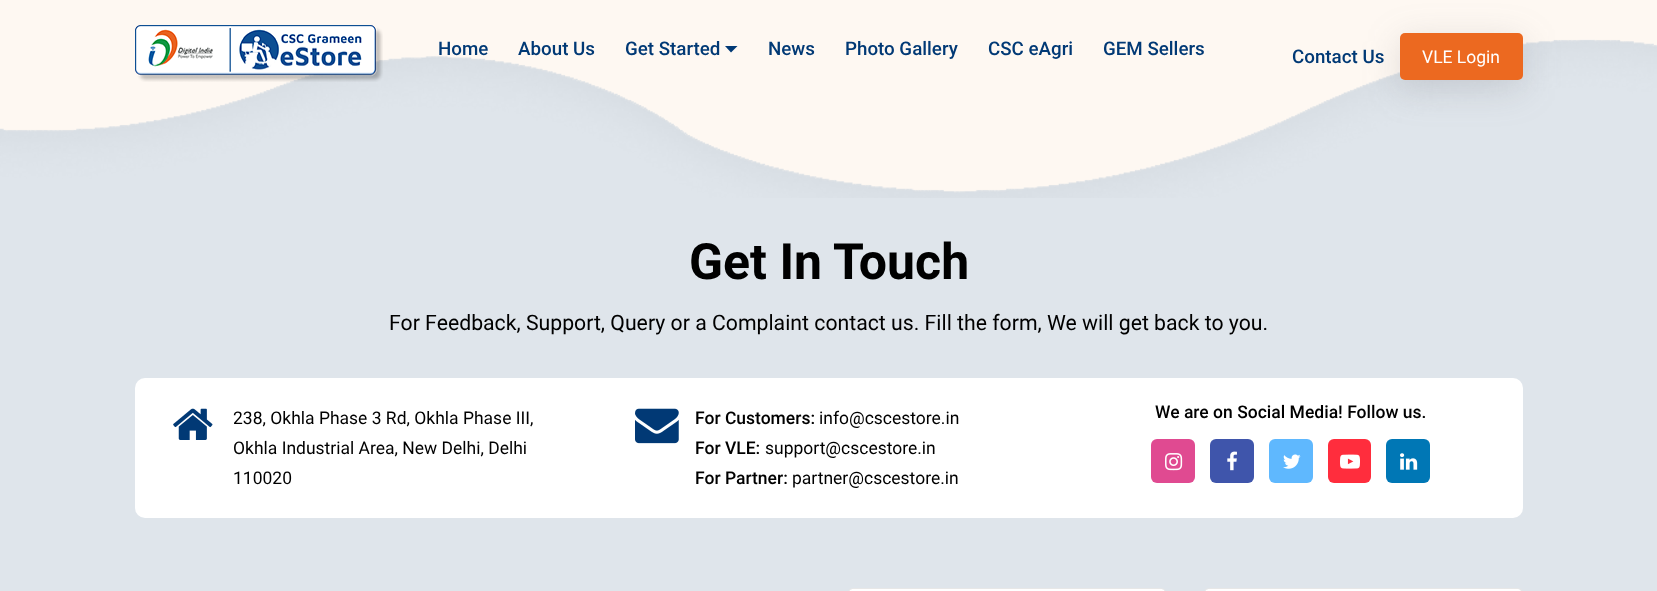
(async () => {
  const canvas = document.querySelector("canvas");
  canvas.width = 1657;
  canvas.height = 591;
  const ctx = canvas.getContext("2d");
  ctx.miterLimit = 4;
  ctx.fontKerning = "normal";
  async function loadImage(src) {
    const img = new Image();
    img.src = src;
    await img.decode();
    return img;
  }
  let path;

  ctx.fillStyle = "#dfe5eb";
  ctx.fillRect(0, 0, 1657, 591);
  ctx.drawImage(await loadImage("img/2.png"), 0, 0, 1657, 198);
  ctx.drawImage(await loadImage("img/1.png"), 135, 25, 248, 57);
  ctx.fillStyle = "#013975";
  path = new Path2D("M725 46H737.5L731 52.5Z");
  ctx.fill(path);
  ctx.fillStyle = "rgba(100, 100, 111, 0.2)";
  ctx.filter = "blur(18px)";
  ctx.beginPath();
  ctx.roundRect(1400, 41, 123, 48, 5);
  ctx.fill();
  ctx.filter = "none";
  ctx.fillStyle = "#ec6920";
  ctx.beginPath();
  ctx.roundRect(1400, 33, 123, 47, 5);
  ctx.fill();
  ctx.fillStyle = "#ffffff";
  ctx.beginPath();
  ctx.roundRect(135, 378, 1388, 140, 10);
  ctx.fill();
  ctx.drawImage(await loadImage("img/3.png"), 173, 408, 40, 32);
  ctx.drawImage(await loadImage("img/4.png"), 635, 408, 44, 36);
  ctx.fillStyle = "#e04a91";
  ctx.beginPath();
  ctx.roundRect(1151, 439, 44, 44, 6);
  ctx.fill();
  ctx.drawImage(await loadImage("img/5.png"), 1165, 453, 18, 18);
  ctx.fillStyle = "#3f55ab";
  ctx.beginPath();
  ctx.roundRect(1210, 439, 44, 44, 6);
  ctx.fill();
  ctx.drawImage(await loadImage("img/6.png"), 1227, 451, 10, 20);
  ctx.fillStyle = "#5fb8fe";
  ctx.beginPath();
  ctx.roundRect(1269, 439, 44, 44, 6);
  ctx.fill();
  ctx.drawImage(await loadImage("img/7.png"), 1283, 454, 18, 15);
  ctx.fillStyle = "#ff2d3d";
  ctx.beginPath();
  ctx.roundRect(1328, 439, 43, 44, 6);
  ctx.fill();
  ctx.drawImage(await loadImage("img/8.png"), 1340, 454, 20, 15);
  ctx.fillStyle = "#0077b5";
  ctx.beginPath();
  ctx.roundRect(1386, 439, 44, 44, 6);
  ctx.fill();
  ctx.drawImage(await loadImage("img/9.png"), 1400, 453, 18, 17);
  ctx.fillStyle = "#ffffff";
  ctx.beginPath();
  ctx.roundRect(849, 589, 316, 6, 4);
  ctx.fill();
  ctx.beginPath();
  ctx.roundRect(848.5, 588.5, 317, 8, 4.5);
  ctx.strokeStyle = "#e7e7e7";
  ctx.stroke();
  ctx.beginPath();
  ctx.roundRect(1205, 589, 316, 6, 4);
  ctx.fill();
  ctx.beginPath();
  ctx.roundRect(1204.5, 588.5, 318, 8, 4.5);
  ctx.stroke();
  ctx.font = "500 18.75px Roboto";
  ctx.fillStyle = "#013975";
  for (const [text, x, y] of [
    ["Home", 438, 55],
    ["About Us", 518, 55],
    ["Get Started", 625, 55],
    ["News", 768, 55],
    ["Photo Gallery", 845, 55],
    ["CSC eAgri", 988, 55],
    ["GEM Sellers", 1103, 55],
    ["Contact Us", 1292, 63],
  ]) {
    ctx.fillText(text, x, y);
  }
  ctx.font = "17.5px Roboto";
  ctx.fillStyle = "#ffffff";
  ctx.fillText("VLE Login", 1422, 63);
  ctx.font = "bold 50px Roboto";
  ctx.fillStyle = "#000000";
  ctx.fillText("Get In Touch", 689, 279);
  ctx.font = "21.25px Roboto";
  ctx.fillText("For Feedback, Support, Query or a Complaint contact us. Fill the form, We will get back to you.", 389, 330);
  ctx.font = "17.5px Roboto";
  for (const [text, x, y] of [
    ["238, Okhla Phase 3 Rd, Okhla Phase III,", 233, 424],
    ["Okhla Industrial Area, New Delhi, Delhi", 233, 454],
    ["110020", 233, 484],
  ]) {
    ctx.fillText(text, x, y);
  }
  ctx.font = "500 17.5px Roboto";
  ctx.fillText("For Customers:", 695, 424);
  ctx.font = "17.5px Roboto";
  ctx.fillText("info@cscestore.in", 819, 424);
  ctx.font = "500 17.5px Roboto";
  ctx.fillText("For VLE:", 695, 454);
  ctx.font = "17.5px Roboto";
  ctx.fillText("support@cscestore.in", 765, 454);
  ctx.font = "500 17.5px Roboto";
  ctx.fillText("For Partner:", 695, 484);
  ctx.font = "17.5px Roboto";
  ctx.fillText("partner@cscestore.in", 792, 484);
  ctx.font = "500 17.5px Roboto";
  ctx.fillText("We are on Social Media! Follow us.", 1155, 418);
})();
